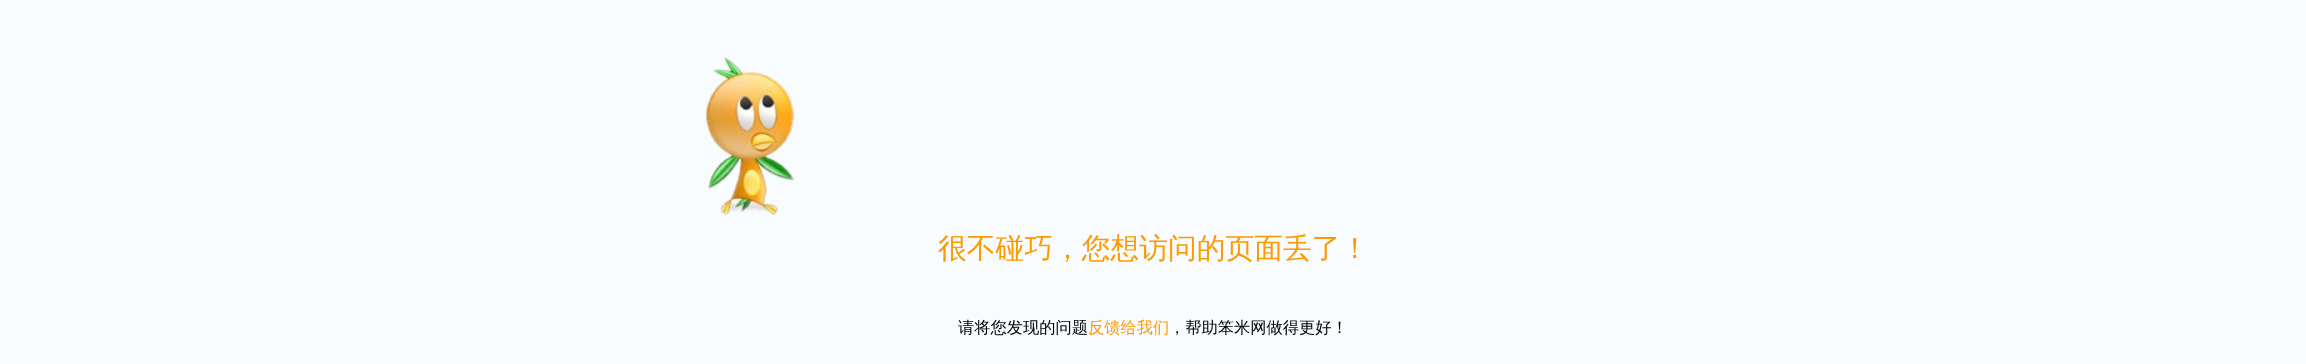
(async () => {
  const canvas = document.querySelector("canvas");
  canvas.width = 2306;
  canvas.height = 364;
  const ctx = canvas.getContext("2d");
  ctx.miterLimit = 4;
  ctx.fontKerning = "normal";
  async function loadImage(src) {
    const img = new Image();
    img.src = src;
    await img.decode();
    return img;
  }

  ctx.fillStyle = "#f9fcfe";
  ctx.fillRect(0, 0, 2306, 364);
  ctx.drawImage(await loadImage("img/1.png"), 705, 57, 90, 160);
  ctx.font = "500 28.75px WenQuanYi Zen Hei";
  ctx.fillStyle = "#ff9900";
  ctx.fillText("很不碰巧，您想访问的页面丢了！", 938, 258);
  ctx.font = "500 16.25px WenQuanYi Zen Hei";
  ctx.fillStyle = "#000000";
  ctx.fillText("请将您发现的问题", 958, 333);
  ctx.fillStyle = "#ff9900";
  ctx.fillText("反馈给我们", 1088, 333);
  ctx.fillStyle = "#000000";
  ctx.fillText("，帮助笨米网做得更好！", 1169, 333);
})();
